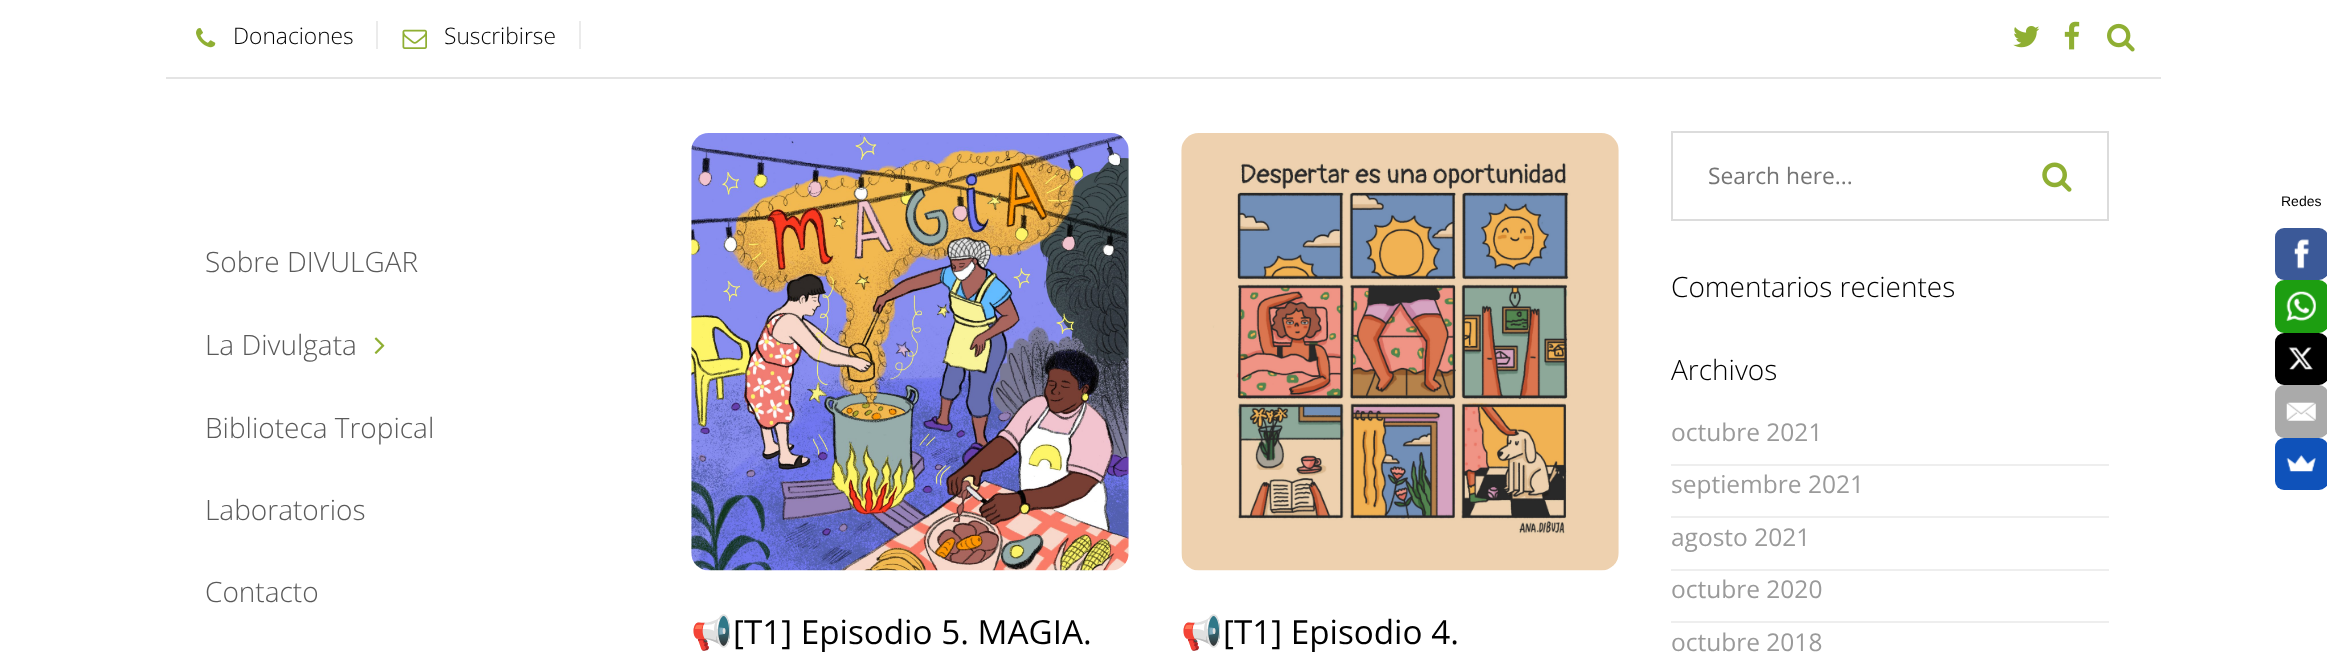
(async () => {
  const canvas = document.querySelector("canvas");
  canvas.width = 2327;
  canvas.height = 665;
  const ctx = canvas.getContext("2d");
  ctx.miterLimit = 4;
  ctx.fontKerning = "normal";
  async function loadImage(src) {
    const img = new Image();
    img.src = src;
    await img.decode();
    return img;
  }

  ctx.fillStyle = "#ffffff";
  ctx.fillRect(0, 0, 2327, 665);
  ctx.fillStyle = "#e4e4e4";
  ctx.fillRect(166, 77, 1995, 2);
  ctx.fillStyle = "#ebebeb";
  ctx.fillRect(376, 21, 2, 28);
  ctx.drawImage(await loadImage("img/1.png"), 196, 28, 20, 20);
  ctx.fillRect(579, 21, 2, 28);
  ctx.drawImage(await loadImage("img/2.png"), 402, 29, 25, 20);
  ctx.drawImage(await loadImage("img/3.png"), 2013, 26, 27, 22);
  ctx.drawImage(await loadImage("img/4.png"), 2064, 21, 16, 29);
  ctx.drawImage(await loadImage("img/5.png"), 2107, 23, 28, 29);
  ctx.drawImage(await loadImage("img/6.png"), 374, 337, 11, 17);
  ctx.drawImage(await loadImage("img/7.png"), 691, 133, 438, 438);
  ctx.drawImage(await loadImage("img/8.png"), 1181, 133, 438, 438);
  ctx.strokeStyle = "#dcdcdc";
  ctx.lineWidth = 2;
  ctx.strokeRect(1672, 132, 436, 88);
  ctx.drawImage(await loadImage("img/9.png"), 2042, 162, 30, 30);
  for (const [x, y, w, h, color] of [
    [1671, 464, 438, 2, "#eeeeee"],
    [1671, 516, 438, 2, "#eeeeee"],
    [1671, 569, 438, 2, "#eeeeee"],
    [1671, 621, 438, 2, "#eeeeee"],
  ]) {
    ctx.fillStyle = color;
    ctx.fillRect(x, y, w, h);
  }
  ctx.fillStyle = "#3b5998";
  ctx.beginPath();
  ctx.roundRect(2275, 228, 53, 52, 9);
  ctx.fill();
  ctx.drawImage(await loadImage("img/10.png"), 2294, 239, 15, 30);
  ctx.fillStyle = "#1d9e11";
  ctx.beginPath();
  ctx.roundRect(2275, 280, 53, 53, 9);
  ctx.fill();
  ctx.drawImage(await loadImage("img/11.png"), 2286, 291, 30, 30);
  ctx.fillStyle = "#000000";
  ctx.beginPath();
  ctx.roundRect(2275, 333, 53, 52, 9);
  ctx.fill();
  ctx.drawImage(await loadImage("img/12.png"), 2288, 347, 25, 23);
  ctx.fillStyle = "#aaaaaa";
  ctx.beginPath();
  ctx.roundRect(2275, 385, 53, 53, 9);
  ctx.fill();
  ctx.drawImage(await loadImage("img/13.png"), 2286, 402, 30, 19);
  ctx.fillStyle = "#0f52ba";
  ctx.beginPath();
  ctx.roundRect(2275, 438, 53, 52, 9);
  ctx.fill();
  ctx.drawImage(await loadImage("img/14.png"), 2286, 455, 30, 17);
  ctx.font = "300 22.75px Open Sans";
  ctx.fillStyle = "#000000";
  ctx.fillText("Donaciones", 233, 44);
  ctx.fillText("Suscribirse", 444, 44);
  ctx.font = "300 28px Open Sans";
  ctx.fillStyle = "#5a5a5a";
  for (const [text, x, y] of [
    ["Sobre DIVULGAR", 205, 272],
    ["La Divulgata", 205, 355],
    ["Biblioteca Tropical", 205, 438],
    ["Laboratorios", 205, 520],
    ["Contacto", 205, 602],
  ]) {
    ctx.fillText(text, x, y);
  }
  ctx.font = "33.25px Noto Color Emoji";
  ctx.fillStyle = "#000000";
  ctx.fillText("📢", 691, 644);
  ctx.font = "33.25px Open Sans";
  ctx.fillText("[T1] Episodio 5. MAGIA.", 733, 644);
  ctx.font = "33.25px Noto Color Emoji";
  ctx.fillText("📢", 1181, 644);
  ctx.font = "33.25px Open Sans";
  ctx.fillText("[T1] Episodio 4.", 1223, 644);
  ctx.font = "22.75px Open Sans";
  ctx.fillStyle = "#757575";
  ctx.fillText("Search here...", 1708, 184);
  ctx.font = "300 28px Open Sans";
  ctx.fillStyle = "#000000";
  ctx.fillText("Comentarios recientes", 1671, 297);
  ctx.fillText("Archivos", 1671, 380);
  ctx.font = "24.5px Open Sans";
  ctx.fillStyle = "#9a9a9a";
  for (const [text, x, y] of [
    ["octubre 2021", 1671, 441],
    ["septiembre 2021", 1671, 493],
    ["agosto 2021", 1671, 546],
    ["octubre 2020", 1671, 598],
    ["octubre 2018", 1671, 651],
  ]) {
    ctx.fillText(text, x, y);
  }
  ctx.font = "14px Liberation Sans";
  ctx.fillStyle = "#000000";
  ctx.fillText("Redes", 2281, 206);
})();
